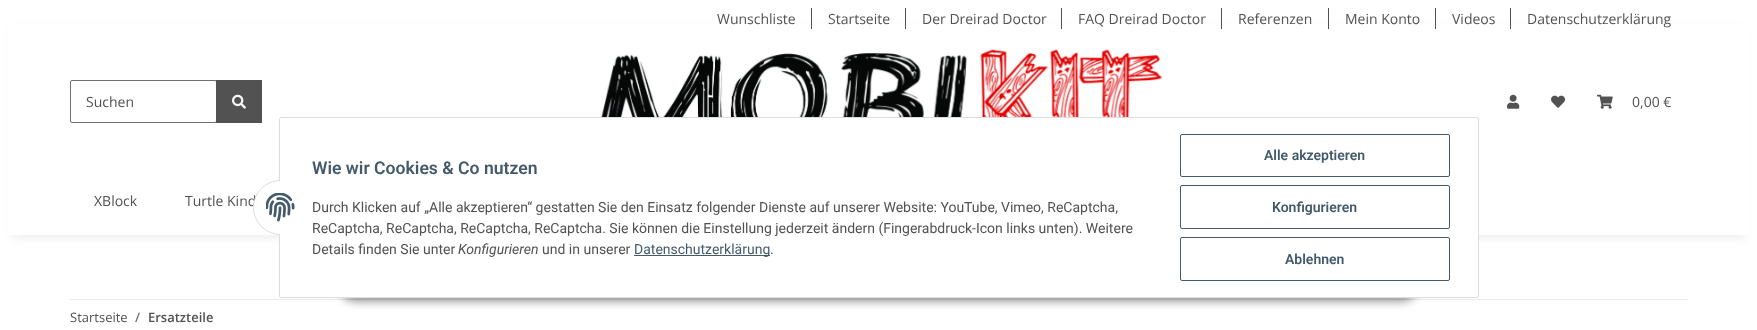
(async () => {
  const canvas = document.querySelector("canvas");
  canvas.width = 1757;
  canvas.height = 330;
  const ctx = canvas.getContext("2d");
  ctx.miterLimit = 4;
  ctx.fontKerning = "normal";
  async function loadImage(src) {
    const img = new Image();
    img.src = src;
    await img.decode();
    return img;
  }

  ctx.fillStyle = "#ffffff";
  ctx.fillRect(0, 0, 1757, 330);
  ctx.fillStyle = "rgba(0, 0, 0, 0.06)";
  ctx.filter = "blur(4.5px)";
  ctx.beginPath();
  ctx.rect(12, 28, 1733, 211);
  ctx.fill();
  ctx.filter = "none";
  for (const [x, y, w, h, color] of [
    [8, 24, 1741, 211, "#ffffff"],
    [811, 8, 1, 21, "#525252"],
    [905, 8, 1, 21, "#525252"],
    [1061, 8, 1, 21, "#525252"],
    [1221, 8, 1, 21, "#525252"],
    [1328, 8, 1, 21, "#525252"],
    [1435, 8, 1, 21, "#525252"],
    [1510, 8, 1, 21, "#525252"],
  ]) {
    ctx.fillStyle = color;
    ctx.fillRect(x, y, w, h);
  }
  ctx.beginPath();
  ctx.roundRect(70.5, 80.5, 146, 42, 1.5);
  ctx.strokeStyle = "#707070";
  ctx.stroke();
  ctx.fillRect(216, 80, 46, 43);
  ctx.drawImage(await loadImage("img/1.png"), 232, 94, 14, 15);
  ctx.drawImage(await loadImage("img/2.png"), 593, 49, 570, 68);
  ctx.drawImage(await loadImage("img/3.png"), 1507, 94, 13, 15);
  ctx.drawImage(await loadImage("img/4.png"), 1551, 95, 14, 13);
  ctx.drawImage(await loadImage("img/5.png"), 1597, 94, 16, 15);
  ctx.fillStyle = "#ebebeb";
  ctx.fillRect(70, 299, 1618, 1);
  ctx.fillStyle = "rgba(0, 0, 0, 0.45)";
  ctx.filter = "blur(5px)";
  ctx.beginPath();
  ctx.roundRect(339, 269, 1079, 32, 16);
  ctx.fill();
  ctx.filter = "none";
  ctx.fillStyle = "#ffffff";
  ctx.beginPath();
  ctx.roundRect(279.5, 117.5, 1199, 180, 1.5);
  ctx.fill();
  ctx.strokeStyle = "#dddddd";
  ctx.stroke();
  ctx.fillStyle = "#435a6b";
  ctx.fillRect(634, 255, 136, 1);
  ctx.beginPath();
  ctx.roundRect(1180.5, 134.5, 269, 42, 1.5);
  ctx.strokeStyle = "#435a6b";
  ctx.stroke();
  ctx.beginPath();
  ctx.roundRect(1180.5, 185.5, 269, 43, 1.5);
  ctx.stroke();
  ctx.beginPath();
  ctx.roundRect(1180.5, 237.5, 269, 43, 1.5);
  ctx.stroke();
  ctx.font = "14px Open Sans";
  ctx.fillStyle = "#525252";
  for (const [text, x, y] of [
    ["Wunschliste", 717, 24],
    ["Startseite", 828, 24],
    ["Der Dreirad Doctor", 922, 24],
    ["FAQ Dreirad Doctor", 1078, 24],
    ["Referenzen", 1238, 24],
    ["Mein Konto", 1345, 24],
    ["Videos", 1452, 24],
    ["Datenschutzerklärung", 1527, 24],
    ["Suchen", 86, 107],
    ["0,00 €", 1632, 107],
    ["XBlock", 94, 206],
    ["Turtle Kind", 185, 206],
  ]) {
    ctx.fillText(text, x, y);
  }
  ctx.fillStyle = "#ffffff";
  ctx.beginPath();
  ctx.arc(280.5, 207.5, 27, 0, Math.PI * 2);
  ctx.fill();
  ctx.strokeStyle = "#dddddd";
  ctx.stroke();
  ctx.fillRect(280, 180, 28, 55);
  ctx.drawImage(await loadImage("img/6.png"), 266, 193, 29, 29);
  ctx.font = "600 17.6px Roboto";
  ctx.fillStyle = "#435a6b";
  ctx.fillText("Wie wir Cookies & Co nutzen", 312, 174);
  ctx.font = "14px Roboto";
  ctx.fillStyle = "#525252";
  for (const [text, x, y] of [
    ["Durch Klicken auf „Alle akzeptieren“ gestatten Sie den Einsatz folgender Dienste auf unserer Website: YouTube, Vimeo, ReCaptcha,", 312, 212],
    ["ReCaptcha, ReCaptcha, ReCaptcha, ReCaptcha. Sie können die Einstellung jederzeit ändern (Fingerabdruck-Icon links unten). Weitere", 312, 233],
    ["Details finden Sie unter", 312, 254],
  ]) {
    ctx.fillText(text, x, y);
  }
  ctx.font = "italic 14px Roboto";
  ctx.fillText("Konfigurieren", 458, 254);
  ctx.font = "14px Roboto";
  ctx.fillText("und in unserer", 542, 254);
  ctx.fillStyle = "#435a6b";
  ctx.fillText("Datenschutzerklärung", 634, 254);
  ctx.fillStyle = "#525252";
  ctx.fillText(".", 770, 254);
  ctx.font = "600 14px Roboto";
  ctx.fillStyle = "#435a6b";
  for (const [text, x, y] of [
    ["Alle akzeptieren", 1264, 160],
    ["Konfigurieren", 1272, 212],
    ["Ablehnen", 1285, 264],
  ]) {
    ctx.fillText(text, x, y);
  }
  ctx.font = "13px Open Sans";
  ctx.fillStyle = "#525252";
  ctx.fillText("Startseite", 70, 322);
  ctx.font = "600 13px Open Sans";
  ctx.fillStyle = "#707070";
  ctx.fillText("/", 135, 322);
  ctx.fillStyle = "#525252";
  ctx.fillText("Ersatzteile", 148, 322);
})();
